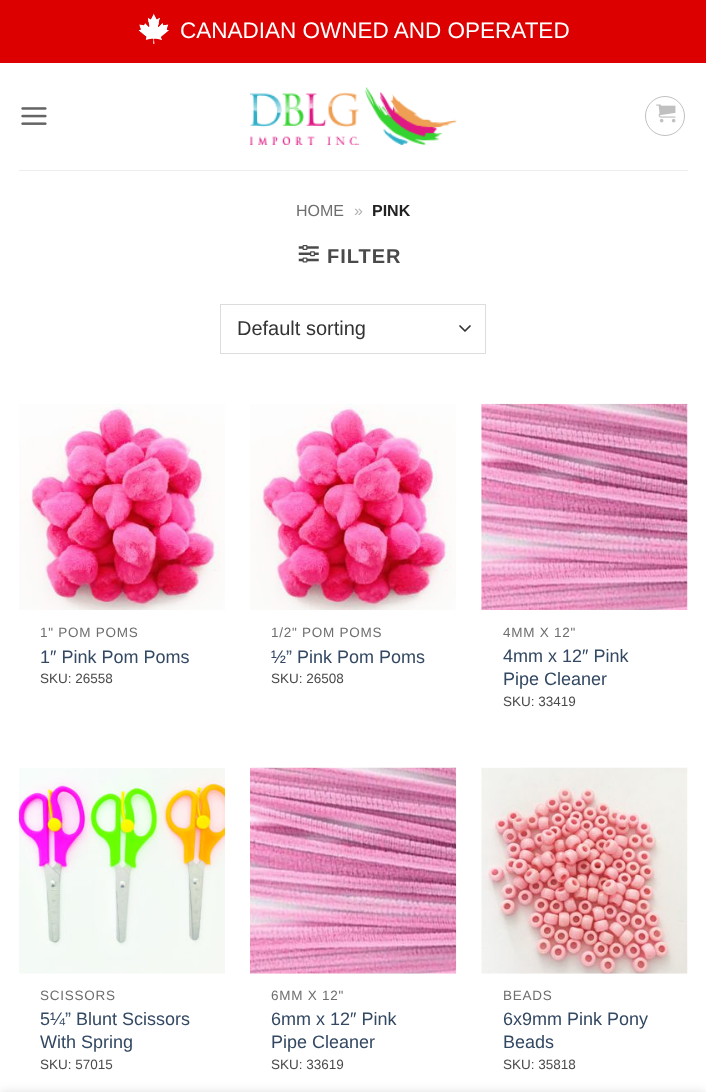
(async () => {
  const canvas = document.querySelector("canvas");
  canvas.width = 706;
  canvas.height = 1092;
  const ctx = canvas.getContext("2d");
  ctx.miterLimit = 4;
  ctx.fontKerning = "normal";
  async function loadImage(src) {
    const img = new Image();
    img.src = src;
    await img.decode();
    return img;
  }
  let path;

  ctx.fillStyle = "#ffffff";
  ctx.fillRect(0, 0, 706, 1092);
  ctx.fillStyle = "#dd0000";
  ctx.fillRect(0, 0, 706, 63);
  ctx.drawImage(await loadImage("img/1.png"), 138, 13, 31, 31);
  ctx.drawImage(await loadImage("img/2.png"), 21, 107, 26, 18);
  ctx.drawImage(await loadImage("img/3.png"), 250, 87, 207, 58);
  ctx.beginPath();
  ctx.arc(665, 116, 19.5, 0, Math.PI * 2);
  ctx.strokeStyle = "#c0c0c0";
  ctx.stroke();
  ctx.drawImage(await loadImage("img/4.png"), 656, 104, 20, 19);
  ctx.fillStyle = "#ededed";
  ctx.fillRect(19, 170, 669, 1);
  ctx.drawImage(await loadImage("img/5.png"), 298, 245, 21, 18);
  path = new Path2D("M460 326L465 331L470 326");
  ctx.strokeStyle = "#333333";
  ctx.lineWidth = 1.7;
  ctx.lineCap = "round";
  ctx.lineJoin = "round";
  ctx.stroke(path);
  ctx.strokeStyle = "#dddddd";
  ctx.lineWidth = 1;
  ctx.lineJoin = "miter";
  ctx.strokeRect(220.5, 304.5, 265, 49);
  ctx.drawImage(await loadImage("img/6.png"), 19, 404, 206, 206);
  ctx.drawImage(await loadImage("img/7.png"), 250, 404, 206, 206);
  ctx.drawImage(await loadImage("img/8.png"), 481, 403, 207, 207);
  ctx.drawImage(await loadImage("img/9.png"), 18, 768, 207, 206);
  ctx.drawImage(await loadImage("img/10.png"), 250, 767, 207, 207);
  ctx.drawImage(await loadImage("img/11.png"), 481, 767, 207, 207);
  ctx.fillStyle = "rgba(0, 0, 0, 0.14)";
  ctx.filter = "blur(5.5px)";
  ctx.beginPath();
  ctx.rect(0, 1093, 706, 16);
  ctx.fill();
  ctx.filter = "none";
  ctx.font = "22.5px Liberation Sans";
  ctx.fillStyle = "#ffffff";
  ctx.fillText("CANADIAN OWNED AND OPERATED", 180, 38);
  ctx.font = "16px Liberation Sans";
  ctx.fillStyle = "#6e6e6e";
  ctx.fillText("HOME", 296, 216);
  ctx.fillStyle = "#b2b2b2";
  ctx.fillText("»", 354, 216);
  ctx.font = "bold 16px Liberation Sans";
  ctx.fillStyle = "#222222";
  ctx.fillText("PINK", 372, 216);
  ctx.letterSpacing = "1px";
  ctx.font = "bold 20px Liberation Sans";
  ctx.fillStyle = "#4a4a4a";
  ctx.fillText("FILTER", 327, 263);
  ctx.letterSpacing = "0px";
  ctx.font = "20px Liberation Sans";
  ctx.fillStyle = "#333333";
  ctx.fillText("Default sorting", 237, 335);
  ctx.letterSpacing = "0.75px";
  ctx.font = "13.5px Liberation Sans";
  ctx.fillStyle = "#6e6e6e";
  ctx.fillText("1\" POM POMS", 40, 637);
  ctx.letterSpacing = "0px";
  ctx.font = "18px Liberation Sans";
  ctx.fillStyle = "#334862";
  ctx.fillText("1″ Pink Pom Poms", 40, 663);
  ctx.font = "13.5px Liberation Sans";
  ctx.fillStyle = "#4a4a4a";
  ctx.fillText("SKU: 26558", 40, 683);
  ctx.letterSpacing = "0.75px";
  ctx.fillStyle = "#6e6e6e";
  ctx.fillText("1/2\" POM POMS", 271, 637);
  ctx.letterSpacing = "0px";
  ctx.font = "18px Liberation Sans";
  ctx.fillStyle = "#334862";
  ctx.fillText("½” Pink Pom Poms", 271, 663);
  ctx.font = "13.5px Liberation Sans";
  ctx.fillStyle = "#4a4a4a";
  ctx.fillText("SKU: 26508", 271, 683);
  ctx.letterSpacing = "0.75px";
  ctx.fillStyle = "#6e6e6e";
  ctx.fillText("4MM X 12\"", 503, 637);
  ctx.letterSpacing = "0px";
  ctx.font = "18px Liberation Sans";
  ctx.fillStyle = "#334862";
  ctx.fillText("4mm x 12″ Pink", 503, 662);
  ctx.fillText("Pipe Cleaner", 503, 685);
  ctx.font = "13.5px Liberation Sans";
  ctx.fillStyle = "#4a4a4a";
  ctx.fillText("SKU: 33419", 503, 706);
  ctx.letterSpacing = "0.75px";
  ctx.fillStyle = "#6e6e6e";
  ctx.fillText("SCISSORS", 40, 1000);
  ctx.letterSpacing = "0px";
  ctx.font = "18px Liberation Sans";
  ctx.fillStyle = "#334862";
  ctx.fillText("5¼” Blunt Scissors", 40, 1025);
  ctx.fillText("With Spring", 40, 1048);
  ctx.font = "13.5px Liberation Sans";
  ctx.fillStyle = "#4a4a4a";
  ctx.fillText("SKU: 57015", 40, 1069);
  ctx.letterSpacing = "0.75px";
  ctx.fillStyle = "#6e6e6e";
  ctx.fillText("6MM X 12\"", 271, 1000);
  ctx.letterSpacing = "0px";
  ctx.font = "18px Liberation Sans";
  ctx.fillStyle = "#334862";
  ctx.fillText("6mm x 12″ Pink", 271, 1025);
  ctx.fillText("Pipe Cleaner", 271, 1048);
  ctx.font = "13.5px Liberation Sans";
  ctx.fillStyle = "#4a4a4a";
  ctx.fillText("SKU: 33619", 271, 1069);
  ctx.letterSpacing = "0.75px";
  ctx.fillStyle = "#6e6e6e";
  ctx.fillText("BEADS", 503, 1000);
  ctx.letterSpacing = "0px";
  ctx.font = "18px Liberation Sans";
  ctx.fillStyle = "#334862";
  ctx.fillText("6x9mm Pink Pony", 503, 1025);
  ctx.fillText("Beads", 503, 1048);
  ctx.font = "13.5px Liberation Sans";
  ctx.fillStyle = "#4a4a4a";
  ctx.fillText("SKU: 35818", 503, 1069);
})();
